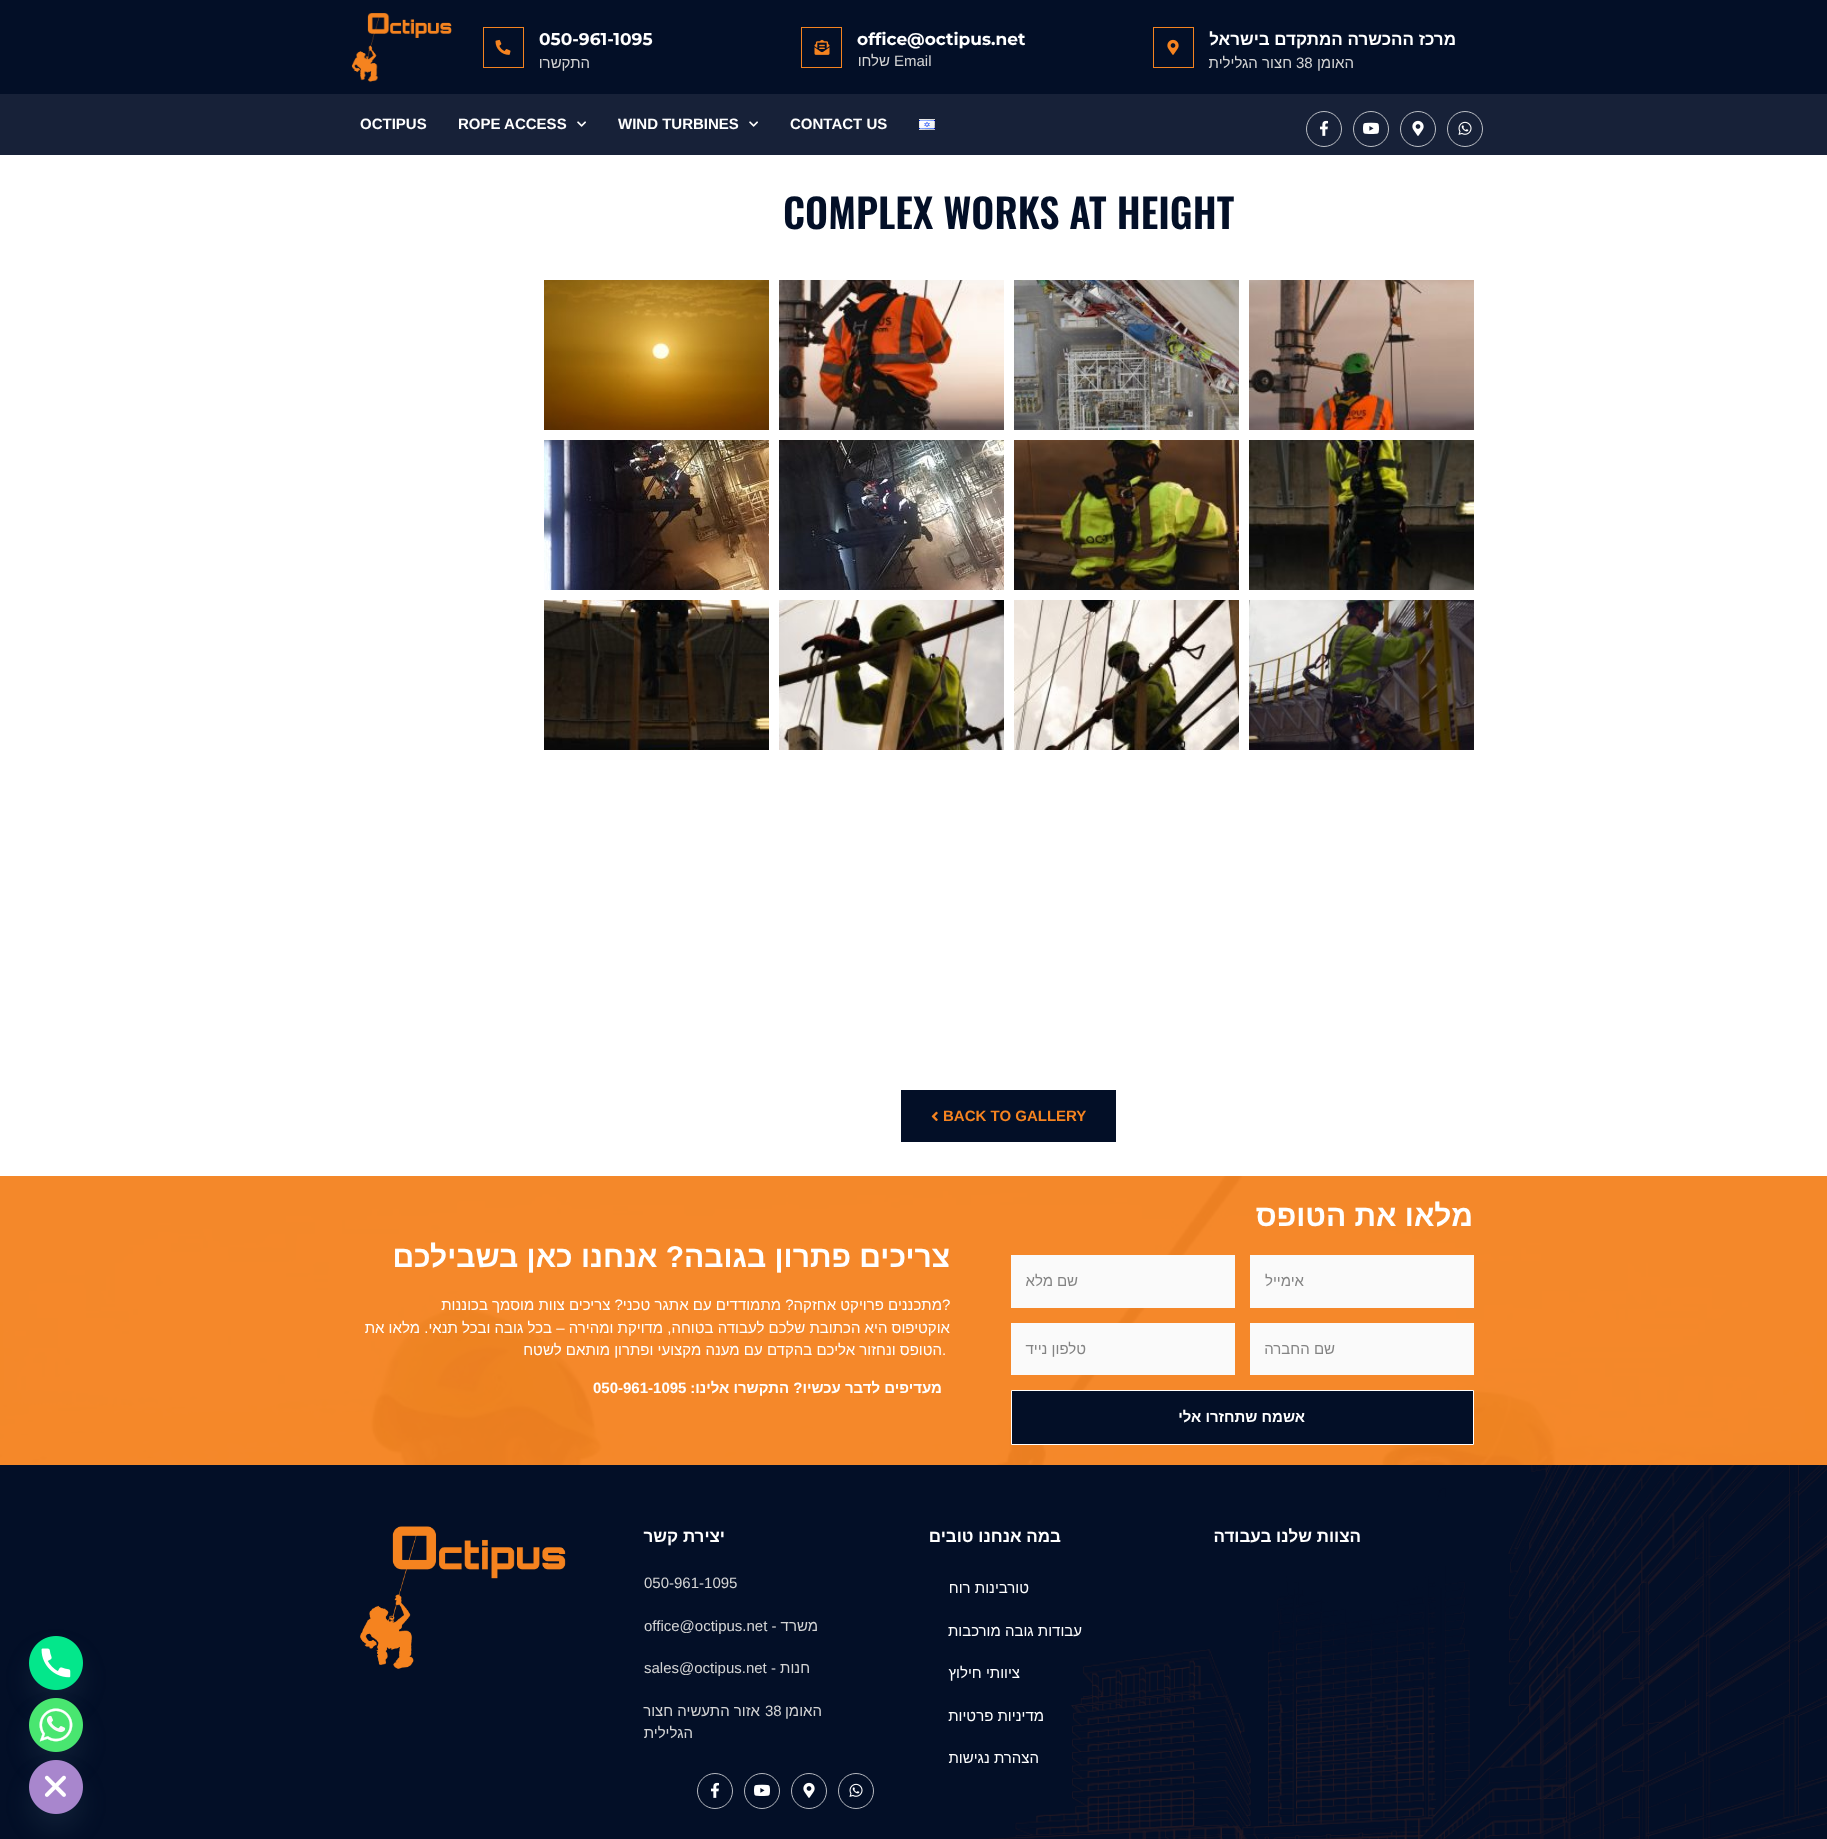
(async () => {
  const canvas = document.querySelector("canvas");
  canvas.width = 1827;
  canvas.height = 1839;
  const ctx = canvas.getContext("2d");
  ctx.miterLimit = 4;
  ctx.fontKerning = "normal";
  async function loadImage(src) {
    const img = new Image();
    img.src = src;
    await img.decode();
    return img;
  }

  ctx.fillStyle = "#ffffff";
  ctx.fillRect(0, 0, 1827, 1839);
  ctx.fillStyle = "#030f27";
  ctx.fillRect(0, 0, 1827, 94);
  ctx.strokeStyle = "#f58320";
  ctx.strokeRect(1153.5, 27.5, 40, 40);
  ctx.drawImage(await loadImage("img/1.png"), 1167, 39, 12, 16);
  ctx.strokeRect(801.5, 27.5, 40, 40);
  ctx.drawImage(await loadImage("img/2.png"), 814, 39, 16, 16);
  ctx.strokeRect(483.5, 27.5, 40, 40);
  ctx.drawImage(await loadImage("img/3.png"), 495, 39, 16, 16);
  ctx.drawImage(await loadImage("img/4.png"), 351, 13, 101, 69);
  ctx.fillStyle = "#172138";
  ctx.fillRect(0, 94, 1827, 61);
  ctx.beginPath();
  ctx.arc(1465, 129, 17.5, 0, Math.PI * 2);
  ctx.strokeStyle = "#bcbfc5";
  ctx.stroke();
  ctx.drawImage(await loadImage("img/5.png"), 1458, 121, 14, 14);
  ctx.beginPath();
  ctx.arc(1418, 129, 17.5, 0, Math.PI * 2);
  ctx.stroke();
  ctx.drawImage(await loadImage("img/6.png"), 1412, 120, 12, 16);
  ctx.beginPath();
  ctx.arc(1371, 129, 17.5, 0, Math.PI * 2);
  ctx.stroke();
  ctx.drawImage(await loadImage("img/7.png"), 1363, 122, 16, 12);
  ctx.beginPath();
  ctx.arc(1324, 129, 17.5, 0, Math.PI * 2);
  ctx.stroke();
  ctx.drawImage(await loadImage("img/8.png"), 1320, 120, 8, 16);
  ctx.drawImage(await loadImage("img/9.png"), 919, 119, 16, 11);
  ctx.drawImage(await loadImage("img/10.png"), 749, 121, 9, 6);
  ctx.drawImage(await loadImage("img/10.png"), 577, 121, 9, 6);
  ctx.drawImage(await loadImage("img/11.png"), 1249, 280, 225, 150);
  ctx.drawImage(await loadImage("img/12.png"), 1014, 280, 225, 150);
  ctx.drawImage(await loadImage("img/13.png"), 779, 280, 225, 150);
  ctx.drawImage(await loadImage("img/14.png"), 544, 280, 225, 150);
  ctx.drawImage(await loadImage("img/15.png"), 1249, 440, 225, 150);
  ctx.drawImage(await loadImage("img/16.png"), 1014, 440, 225, 150);
  ctx.drawImage(await loadImage("img/17.png"), 779, 440, 225, 150);
  ctx.drawImage(await loadImage("img/18.png"), 544, 440, 225, 150);
  ctx.drawImage(await loadImage("img/19.png"), 1249, 600, 225, 150);
  ctx.drawImage(await loadImage("img/20.png"), 1014, 600, 225, 150);
  ctx.drawImage(await loadImage("img/21.png"), 779, 600, 225, 150);
  ctx.drawImage(await loadImage("img/22.png"), 544, 600, 225, 150);
  ctx.fillStyle = "#030f27";
  ctx.fillRect(901, 1090, 215, 52);
  ctx.drawImage(await loadImage("img/23.png"), 931, 1111, 7, 10);
  ctx.drawImage(await loadImage("img/24.png"), 0, 1176, 1827, 289);
  for (const [x, y, w, h, color] of [
    [1250, 1255, 224, 53, "#fafafa"],
    [1011, 1255, 224, 53, "#fafafa"],
    [1250, 1323, 224, 52, "#fafafa"],
    [1011, 1323, 224, 52, "#fafafa"],
  ]) {
    ctx.fillStyle = color;
    ctx.fillRect(x, y, w, h);
  }
  ctx.fillStyle = "#030f27";
  ctx.beginPath();
  ctx.rect(1011.5, 1390.5, 462, 54);
  ctx.fill();
  ctx.strokeStyle = "#ffffff";
  ctx.stroke();
  ctx.fillRect(0, 1465, 1827, 374);
  ctx.drawImage(await loadImage("img/25.png"), 989, 1465, 838, 374);
  ctx.beginPath();
  ctx.arc(856, 1791, 17.5, 0, Math.PI * 2);
  ctx.strokeStyle = "#b6b9c0";
  ctx.stroke();
  ctx.drawImage(await loadImage("img/26.png"), 849, 1783, 14, 14);
  ctx.beginPath();
  ctx.arc(809, 1791, 17.5, 0, Math.PI * 2);
  ctx.stroke();
  ctx.drawImage(await loadImage("img/27.png"), 803, 1782, 12, 16);
  ctx.beginPath();
  ctx.arc(762, 1791, 17.5, 0, Math.PI * 2);
  ctx.stroke();
  ctx.drawImage(await loadImage("img/28.png"), 754, 1784, 16, 12);
  ctx.beginPath();
  ctx.arc(715, 1791, 17.5, 0, Math.PI * 2);
  ctx.stroke();
  ctx.drawImage(await loadImage("img/29.png"), 711, 1782, 8, 16);
  ctx.drawImage(await loadImage("img/30.png"), 360, 1526, 206, 143);
  ctx.fillStyle = "rgba(73, 104, 126, 0.16)";
  ctx.filter = "blur(12px)";
  ctx.beginPath();
  ctx.roundRect(29, 1652, 54, 54, 27);
  ctx.fill();
  ctx.filter = "none";
  ctx.drawImage(await loadImage("img/31.png"), 29, 1636, 54, 54);
  ctx.filter = "blur(12px)";
  ctx.beginPath();
  ctx.roundRect(29, 1714, 54, 54, 27);
  ctx.fill();
  ctx.filter = "none";
  ctx.drawImage(await loadImage("img/32.png"), 29, 1698, 54, 54);
  ctx.filter = "blur(12px)";
  ctx.beginPath();
  ctx.roundRect(29, 1776, 54, 54, 27);
  ctx.fill();
  ctx.filter = "none";
  ctx.drawImage(await loadImage("img/33.png"), 29, 1760, 54, 54);
  ctx.direction = "rtl";
  ctx.font = "bold 17px Liberation Sans";
  ctx.fillStyle = "#ffffff";
  ctx.fillText("מרכז ההכשרה המתקדם בישראל", 1456, 45);
  ctx.font = "15px Liberation Sans";
  ctx.fillStyle = "#d5d5d5";
  ctx.fillText("האומן", 1354, 68);
  ctx.direction = "ltr";
  ctx.fillText("38", 1296, 68);
  ctx.direction = "rtl";
  ctx.fillText("חצור הגלילית", 1292, 68);
  ctx.direction = "ltr";
  ctx.font = "bold 17px Montserrat";
  ctx.fillStyle = "#ffffff";
  ctx.fillText("office@octipus.net", 857, 45);
  ctx.font = "15px Liberation Sans";
  ctx.fillStyle = "#d5d5d5";
  ctx.fillText("Email", 894, 66);
  ctx.direction = "rtl";
  ctx.fillText("שלחו", 890, 66);
  ctx.direction = "ltr";
  ctx.font = "bold 17px Montserrat";
  ctx.fillStyle = "#ffffff";
  ctx.fillText("050-961-1095", 539, 45);
  ctx.direction = "rtl";
  ctx.font = "15px Liberation Sans";
  ctx.fillStyle = "#d5d5d5";
  ctx.fillText("התקשרו", 590, 68);
  ctx.direction = "ltr";
  ctx.font = "bold 15px Liberation Sans";
  ctx.fillStyle = "#ffffff";
  for (const [text, x, y] of [
    ["CONTACT US", 790, 129],
    ["WIND TURBINES", 618, 129],
    ["ROPE ACCESS", 458, 129],
    ["OCTIPUS", 360, 129],
  ]) {
    ctx.fillText(text, x, y);
  }
  ctx.font = "600 40px Oswald";
  ctx.fillStyle = "#030f27";
  ctx.fillText("COMPLEX WORKS AT HEIGHT", 783, 229);
  ctx.font = "bold 15px Liberation Sans";
  ctx.fillStyle = "#f58320";
  ctx.fillText("BACK TO GALLERY", 943, 1121);
  ctx.direction = "rtl";
  ctx.font = "bold 30px Liberation Sans";
  ctx.fillStyle = "#ffffff";
  ctx.fillText("מלאו את הטופס", 1473, 1226);
  ctx.font = "15px Liberation Sans";
  ctx.fillStyle = "#838383";
  for (const [text, x, y] of [
    ["אימייל", 1304, 1286],
    ["שם", 1078, 1286],
    ["מלא", 1053, 1286],
    ["שם החברה", 1335, 1354],
    ["טלפון נייד", 1086, 1354],
  ]) {
    ctx.fillText(text, x, y);
  }
  ctx.font = "bold 15px Liberation Sans";
  ctx.fillStyle = "#ffffff";
  ctx.fillText("אשמח שתחזרו אלי", 1305, 1422);
  ctx.font = "bold 30px Liberation Sans";
  ctx.fillText("צריכים פתרון בגובה? אנחנו כאן בשבילכם", 950, 1267);
  ctx.direction = "ltr";
  ctx.font = "15px Liberation Sans";
  ctx.fillText("?", 942, 1310);
  ctx.direction = "rtl";
  ctx.fillText("מתכננים פרויקט אחזקה? מתמודדים עם אתגר טכני? צריכים צוות מוסמך בכוננות", 942, 1310);
  ctx.fillText("אוקטיפוס היא הכתובת שלכם לעבודה בטוחה, מדויקת ומהירה – בכל גובה ובכל תנאי. מלאו את", 950, 1333);
  ctx.direction = "ltr";
  ctx.fillText(".", 942, 1355);
  ctx.direction = "rtl";
  ctx.fillText("הטופס ונחזור אליכם בהקדם עם מענה מקצועי ופתרון מותאם לשטח", 942, 1355);
  ctx.font = "bold 15px Liberation Sans";
  ctx.fillText("מעדיפים לדבר עכשיו? התקשרו אלינו:", 942, 1393);
  ctx.direction = "ltr";
  ctx.fillText("050-961-1095", 593, 1393);
  ctx.direction = "rtl";
  ctx.font = "bold 17px Liberation Sans";
  ctx.fillText("הצוות שלנו בעבודה", 1361, 1542);
  ctx.fillText("במה אנחנו טובים", 1061, 1542);
  ctx.font = "15px Liberation Sans";
  for (const [text, x, y] of [
    ["טורבינות רוח", 1029, 1593],
    ["עבודות גובה מורכבות", 1082, 1636],
    ["ציוותי חילוץ", 1020, 1678],
    ["מדיניות פרטיות", 1044, 1721],
    ["הצהרת נגישות", 1039, 1763],
  ]) {
    ctx.fillText(text, x, y);
  }
  ctx.font = "bold 17px Liberation Sans";
  ctx.fillText("יצירת קשר", 725, 1542);
  ctx.direction = "ltr";
  ctx.font = "15px Liberation Sans";
  ctx.fillStyle = "#d5d5d5";
  ctx.fillText("050-961-1095", 644, 1588);
  ctx.direction = "rtl";
  ctx.fillText("משרד", 818, 1631);
  ctx.direction = "ltr";
  ctx.fillText("office@octipus.net -", 644, 1631);
  ctx.direction = "rtl";
  ctx.fillText("חנות", 810, 1673);
  ctx.direction = "ltr";
  ctx.fillText("sales@octipus.net -", 644, 1673);
  ctx.direction = "rtl";
  ctx.fillText("האומן", 822, 1716);
  ctx.direction = "ltr";
  ctx.fillText("38", 765, 1716);
  ctx.direction = "rtl";
  ctx.fillText("אזור התעשיה חצור", 760, 1716);
  ctx.fillText("הגלילית", 693, 1738);
})();
